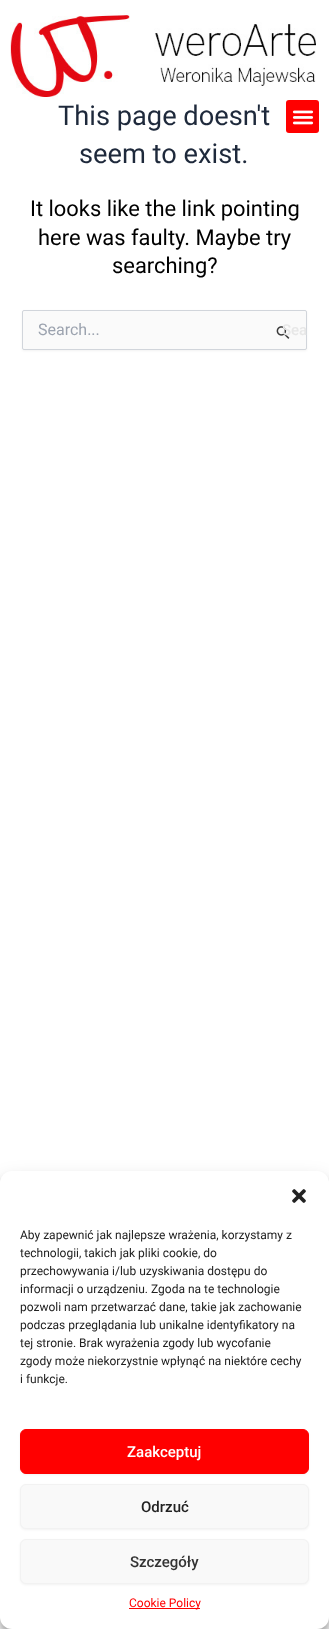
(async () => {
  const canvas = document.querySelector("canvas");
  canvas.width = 329;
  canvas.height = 1629;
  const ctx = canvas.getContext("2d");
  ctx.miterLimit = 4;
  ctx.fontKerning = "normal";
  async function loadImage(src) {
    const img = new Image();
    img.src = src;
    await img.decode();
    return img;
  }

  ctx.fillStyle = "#ffffff";
  ctx.fillRect(0, 0, 329, 1629);
  ctx.drawImage(await loadImage("img/1.png"), 10, 10, 306, 90);
  ctx.fillStyle = "#ff0000";
  ctx.beginPath();
  ctx.roundRect(286, 100, 33, 33, 3);
  ctx.fill();
  ctx.drawImage(await loadImage("img/2.png"), 292, 110, 22, 15);
  ctx.fillStyle = "rgba(0, 0, 0, 0.05)";
  ctx.filter = "blur(1px)";
  ctx.beginPath();
  ctx.roundRect(22, 311, 285, 40, 2);
  ctx.fill();
  ctx.filter = "none";
  ctx.fillStyle = "#fafafa";
  ctx.beginPath();
  ctx.roundRect(22.5, 310.5, 284, 39, 1.5);
  ctx.fill();
  ctx.strokeStyle = "#d1d5db";
  ctx.stroke();
  ctx.drawImage(await loadImage("img/3.png"), 276, 326, 14, 13);
  ctx.fillStyle = "rgba(0, 0, 0, 0.23)";
  ctx.filter = "blur(3px)";
  ctx.beginPath();
  ctx.roundRect(0, 1177, 329, 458, 12);
  ctx.fill();
  ctx.filter = "none";
  ctx.fillStyle = "rgba(0, 0, 0, 0.19)";
  ctx.filter = "blur(10px)";
  ctx.beginPath();
  ctx.roundRect(0, 1181, 329, 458, 12);
  ctx.fill();
  ctx.filter = "none";
  ctx.fillStyle = "#ffffff";
  ctx.beginPath();
  ctx.roundRect(0, 1171, 329, 458, 12);
  ctx.fill();
  ctx.drawImage(await loadImage("img/4.png"), 292, 1189, 14, 14);
  ctx.fillStyle = "rgba(0, 0, 0, 0.05)";
  ctx.filter = "blur(1px)";
  ctx.beginPath();
  ctx.roundRect(20, 1430, 289, 45, 6);
  ctx.fill();
  ctx.filter = "none";
  ctx.fillStyle = "#ff0000";
  ctx.beginPath();
  ctx.roundRect(20.5, 1429.5, 288, 44, 5.5);
  ctx.fill();
  ctx.strokeStyle = "#ff0000";
  ctx.stroke();
  ctx.fillStyle = "rgba(0, 0, 0, 0.05)";
  ctx.filter = "blur(1px)";
  ctx.beginPath();
  ctx.roundRect(20, 1485, 289, 45, 6);
  ctx.fill();
  ctx.filter = "none";
  ctx.fillStyle = "#f9f9f9";
  ctx.beginPath();
  ctx.roundRect(20.5, 1484.5, 288, 44, 5.5);
  ctx.fill();
  ctx.strokeStyle = "#f2f2f2";
  ctx.stroke();
  ctx.fillStyle = "rgba(0, 0, 0, 0.05)";
  ctx.filter = "blur(1px)";
  ctx.beginPath();
  ctx.roundRect(20, 1540, 289, 45, 6);
  ctx.fill();
  ctx.filter = "none";
  ctx.fillStyle = "#f9f9f9";
  ctx.beginPath();
  ctx.roundRect(20.5, 1539.5, 288, 44, 5.5);
  ctx.fill();
  ctx.stroke();
  ctx.fillStyle = "#ff0000";
  ctx.fillRect(129, 1608, 71, 1);
  ctx.font = "27.25px Roboto";
  ctx.fillStyle = "#1e293b";
  ctx.fillText("This page doesn't", 58, 125);
  ctx.fillText("seem to exist.", 79, 163);
  ctx.font = "21.9px Roboto";
  ctx.fillStyle = "#000000";
  for (const [text, x, y] of [
    ["It looks like the link pointing", 30, 216],
    ["here was faulty. Maybe try", 38, 245],
    ["searching?", 112, 273],
  ]) {
    ctx.fillText(text, x, y);
  }
  ctx.font = "16px Roboto";
  ctx.fillStyle = "#9ca3af";
  ctx.fillText("Search...", 38, 335);
  ctx.font = "500 15px Roboto";
  ctx.fillStyle = "#e7e7e7";
  ctx.fillText("Sea", 282, 335);
  ctx.font = "12px Roboto";
  ctx.fillStyle = "#222222";
  for (const [text, x, y] of [
    ["Aby zapewnić jak najlepsze wrażenia, korzystamy z", 20, 1239],
    ["technologii, takich jak pliki cookie, do", 20, 1257],
    ["przechowywania i/lub uzyskiwania dostępu do", 20, 1275],
    ["informacji o urządzeniu. Zgoda na te technologie", 20, 1293],
    ["pozwoli nam przetwarzać dane, takie jak zachowanie", 20, 1311],
    ["podczas przeglądania lub unikalne identyfikatory na", 20, 1329],
    ["tej stronie. Brak wyrażenia zgody lub wycofanie", 20, 1347],
    ["zgody może niekorzystnie wpłynąć na niektóre cechy", 20, 1365],
    ["i funkcje.", 20, 1383],
  ]) {
    ctx.fillText(text, x, y);
  }
  ctx.font = "500 15px Roboto";
  ctx.fillStyle = "#ffffff";
  ctx.fillText("Zaakceptuj", 127, 1457);
  ctx.fillStyle = "#222222";
  ctx.fillText("Odrzuć", 141, 1512);
  ctx.fillStyle = "#333333";
  ctx.fillText("Szczegóły", 130, 1567);
  ctx.font = "12px Roboto";
  ctx.fillStyle = "#ff0000";
  ctx.fillText("Cookie Policy", 129, 1607);
})();
